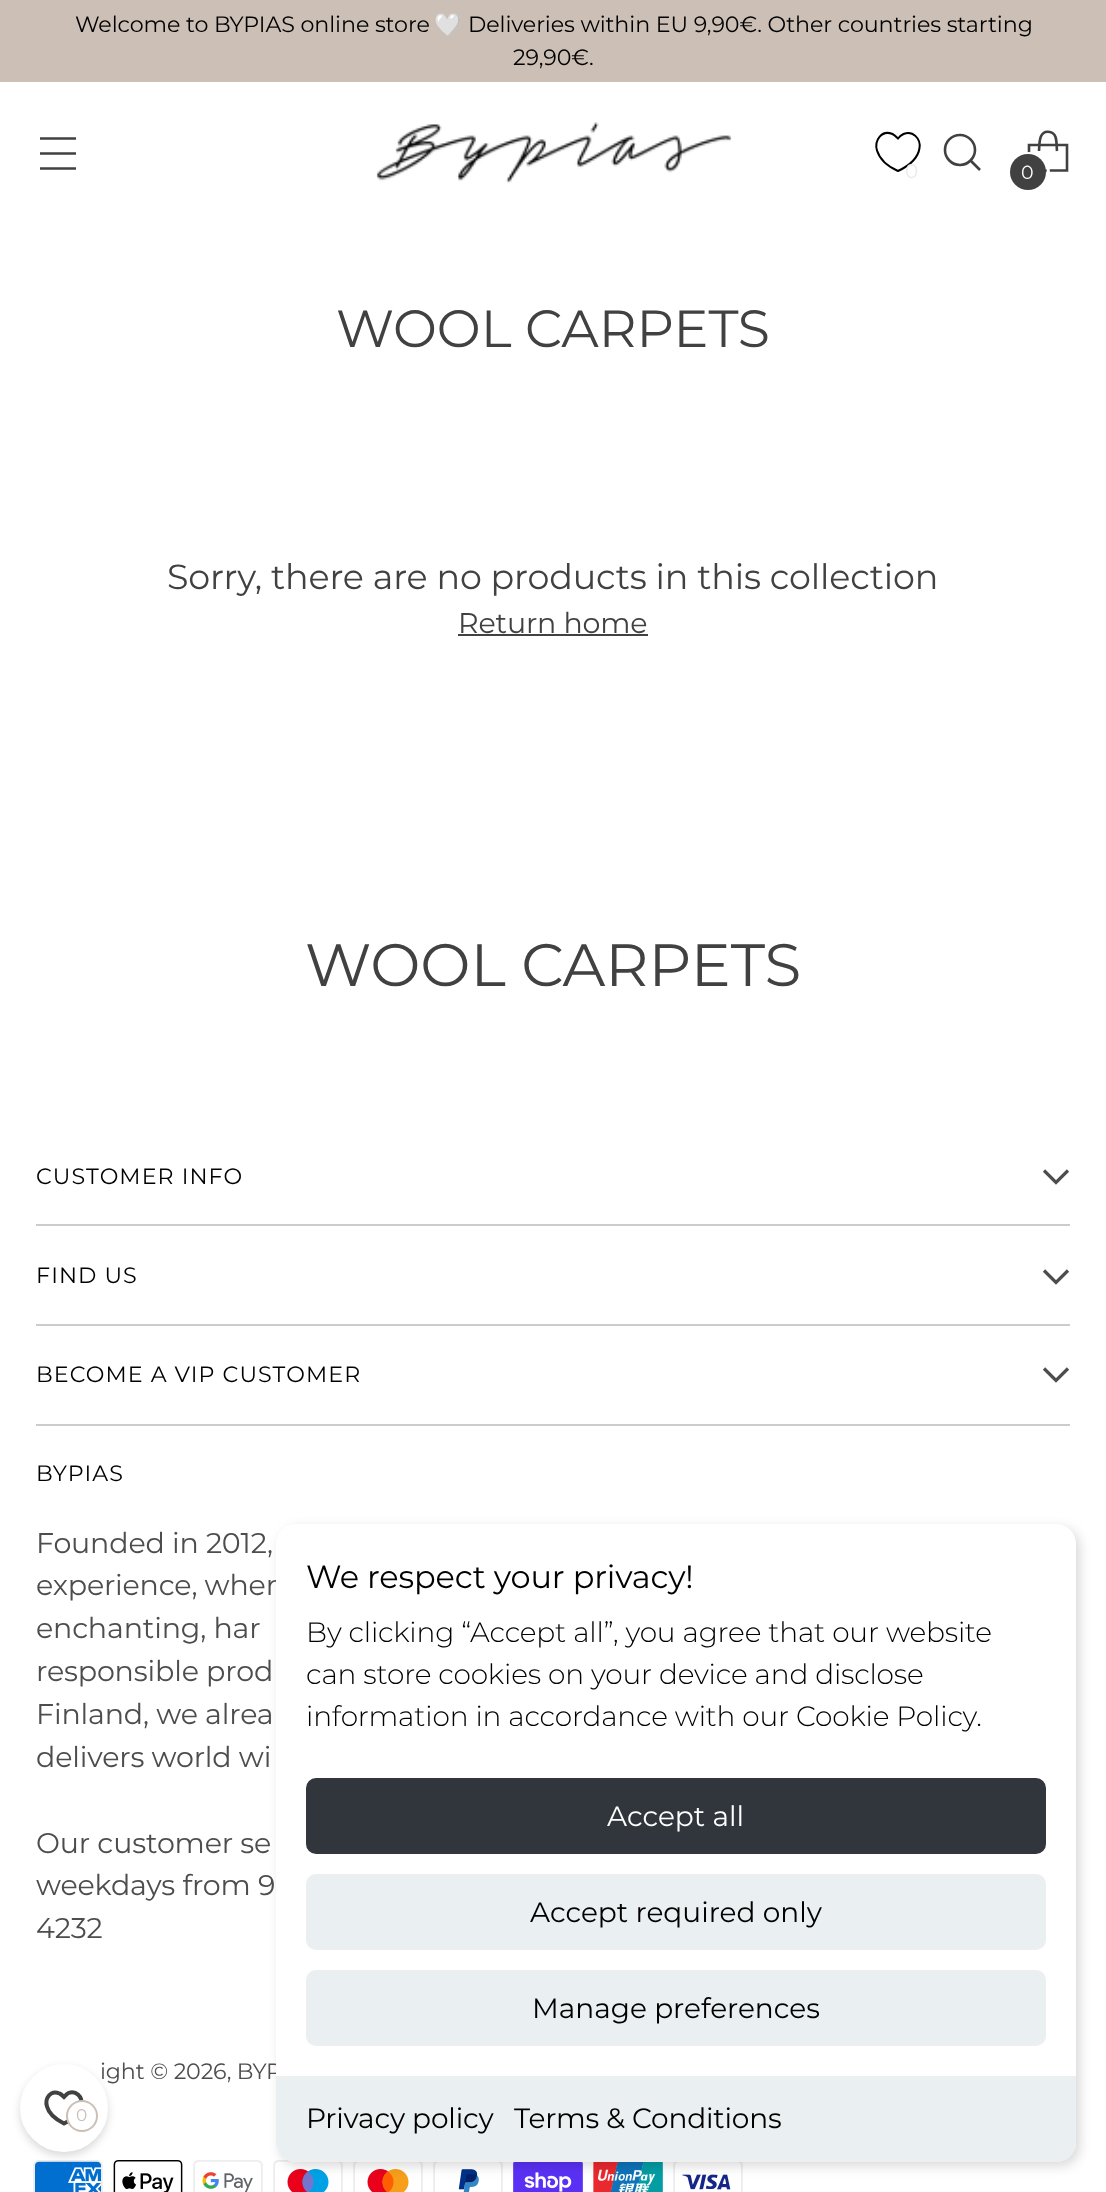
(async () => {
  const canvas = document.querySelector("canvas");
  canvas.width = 1106;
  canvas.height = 2192;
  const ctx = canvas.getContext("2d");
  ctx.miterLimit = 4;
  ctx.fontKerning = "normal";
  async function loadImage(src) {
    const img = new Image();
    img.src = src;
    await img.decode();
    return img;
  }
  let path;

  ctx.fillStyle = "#ffffff";
  ctx.fillRect(0, 0, 1106, 2192);
  ctx.fillStyle = "#ccbfb6";
  ctx.fillRect(0, 0, 1106, 82);
  path = new Path2D("M40 153.5H76M40 138.5H76M40 168.5H76");
  ctx.strokeStyle = "#414141";
  ctx.lineWidth = 2.6;
  ctx.stroke(path);
  ctx.drawImage(await loadImage("img/1.png"), 376, 122, 356, 62);
  path = new Path2D("M898 171C889 167 880 160 877 150.5C874 140.5 881.5 129.5 892.5 134C894.5 135 896 136.5 898 138.5C899.5 136.5 901.5 135 903.5 134C913 130 921 139 919.5 148C918 159 907.5 166.5 898 171Z");
  ctx.strokeStyle = "#000000";
  ctx.lineWidth = 2;
  ctx.stroke(path);
  path = new Path2D("M960 165C968 165 975 158 975 150C975 141.5 968 135 960 135C951.5 135 945 141.5 945 150C945 158 951.5 165 960 165Z");
  ctx.strokeStyle = "#414141";
  ctx.lineWidth = 2.6;
  ctx.lineCap = "round";
  ctx.stroke(path);
  path = new Path2D("M970.5 160.5L980 170");
  ctx.lineCap = "butt";
  ctx.stroke(path);
  path = new Path2D("M1057 151C1056.5 146.5 1057 141.5 1055.5 137C1054.5 134.5 1052.5 132.5 1050 132C1038.5 129.5 1039.5 144 1039 151");
  ctx.lineJoin = "bevel";
  ctx.stroke(path);
  path = new Path2D("M1067 170.5V145H1029V170.5Z");
  ctx.lineJoin = "miter";
  ctx.stroke(path);
  ctx.beginPath();
  ctx.arc(1029, 173, 19.5, 0, Math.PI * 2);
  ctx.strokeStyle = "#ffffff";
  ctx.lineWidth = 3;
  ctx.stroke();
  ctx.fillStyle = "#414141";
  ctx.beginPath();
  ctx.arc(1028, 172, 18, 0, Math.PI * 2);
  ctx.fill();
  ctx.fillRect(458, 634, 190, 2);
  ctx.fillStyle = "#cccccc";
  ctx.fillRect(36, 1224, 1034, 2);
  path = new Path2D("M1044 1170.5L1056 1182.5L1068 1170.5");
  ctx.strokeStyle = "#4d4d4d";
  ctx.lineWidth = 3.2;
  ctx.stroke(path);
  ctx.fillRect(36, 1324, 1034, 2);
  path = new Path2D("M1044 1270.5L1056 1282.5L1068 1270.5");
  ctx.stroke(path);
  ctx.fillRect(36, 1424, 1034, 2);
  path = new Path2D("M1044 1368.5L1056 1380.5L1068 1368.5");
  ctx.stroke(path);
  ctx.drawImage(await loadImage("img/2.png"), 33, 2160, 70, 32);
  ctx.drawImage(await loadImage("img/3.png"), 113, 2160, 70, 32);
  ctx.drawImage(await loadImage("img/4.png"), 193, 2160, 70, 32);
  ctx.drawImage(await loadImage("img/5.png"), 273, 2160, 70, 32);
  ctx.drawImage(await loadImage("img/6.png"), 353, 2162, 70, 30);
  ctx.drawImage(await loadImage("img/7.png"), 433, 2162, 70, 30);
  ctx.drawImage(await loadImage("img/8.png"), 513, 2162, 70, 30);
  ctx.drawImage(await loadImage("img/9.png"), 593, 2162, 70, 30);
  ctx.drawImage(await loadImage("img/10.png"), 673, 2162, 70, 30);
  ctx.fillStyle = "rgba(0, 0, 0, 0.15)";
  ctx.filter = "blur(4px)";
  ctx.beginPath();
  ctx.roundRect(20, 2068, 88, 88, 44);
  ctx.fill();
  ctx.filter = "none";
  ctx.filter = "blur(6px)";
  ctx.beginPath();
  ctx.roundRect(280, 1528, 800, 638, 20);
  ctx.fill();
  ctx.filter = "none";
  ctx.letterSpacing = "-0.1px";
  ctx.font = "100 22.2px Montserrat";
  ctx.fillStyle = "#000000";
  ctx.fillText("Welcome to BYPIAS online store", 75, 32);
  ctx.font = "22.2px Noto Color Emoji";
  ctx.fillText("🤍", 434, 32);
  ctx.font = "100 22.2px Montserrat";
  ctx.fillText("Deliveries within EU 9,90€. Other countries starting", 468, 32);
  ctx.fillText("29,90€.", 513, 65);
  ctx.letterSpacing = "-0.15px";
  ctx.font = "100 20px Montserrat";
  ctx.fillStyle = "#ebebeb";
  ctx.fillText("0", 905, 178);
  ctx.font = "100 19px Montserrat";
  ctx.fillStyle = "#ffffff";
  ctx.fillText("0", 1021, 179);
  ctx.letterSpacing = "0px";
  ctx.font = "100 52.25px Montserrat";
  ctx.fillStyle = "#414141";
  ctx.fillText("WOOL CARPETS", 336, 347);
  ctx.letterSpacing = "-0.15px";
  ctx.font = "100 34.9px Montserrat";
  ctx.fillText("Sorry, there are no products in this collection", 167, 589);
  ctx.font = "100 28.5px Montserrat";
  ctx.fillText("Return home", 458, 633);
  ctx.letterSpacing = "0px";
  ctx.font = "100 59.75px Montserrat";
  ctx.fillText("WOOL CARPETS", 305, 986);
  ctx.letterSpacing = "1.1px";
  ctx.font = "100 22.2px Montserrat";
  ctx.fillStyle = "#000000";
  for (const [text, x, y] of [
    ["CUSTOMER INFO", 36, 1184],
    ["FIND US", 36, 1283],
    ["BECOME A VIP CUSTOMER", 36, 1382],
    ["BYPIAS", 36, 1481],
  ]) {
    ctx.fillText(text, x, y);
  }
  ctx.letterSpacing = "-0.15px";
  ctx.font = "100 28.5px Montserrat";
  ctx.fillStyle = "#4d4d4d";
  for (const [text, x, y] of [
    ["Founded in 2012,", 36, 1553],
    ["experience, wher", 36, 1595],
    ["enchanting, har", 36, 1638],
    ["responsible prod", 36, 1681],
    ["Finland, we alrea", 36, 1724],
    ["delivers world wi", 36, 1767],
    ["Our customer se", 36, 1853],
    ["weekdays from 9", 36, 1895],
    ["4232", 36, 1938],
  ]) {
    ctx.fillText(text, x, y);
  }
  ctx.font = "100 22.2px Montserrat";
  ctx.fillText("ight © 2026, BYP", 100, 2079);
  ctx.fillStyle = "#ffffff";
  ctx.beginPath();
  ctx.arc(64, 2108, 42, 0, Math.PI * 2);
  ctx.fill();
  ctx.strokeStyle = "#ffffff";
  ctx.lineWidth = 4;
  ctx.stroke();
  path = new Path2D("M64 2123.5C57 2120 49 2114.5 47 2106.5C44.5 2098.5 50.5 2089.5 59.5 2093.5C61 2094 62.5 2095.5 64 2097C65.5 2095.5 66.5 2094 68.5 2093C76 2090 82.5 2097 81.5 2104.5C80.5 2113.5 71.5 2120 64 2123.5Z");
  ctx.strokeStyle = "#414141";
  ctx.stroke(path);
  ctx.beginPath();
  ctx.arc(82, 2116, 15, 0, Math.PI * 2);
  ctx.fill();
  ctx.strokeStyle = "#ccbfb6";
  ctx.lineWidth = 2;
  ctx.stroke();
  ctx.font = "100 17px Montserrat";
  ctx.fillStyle = "#ccbfb6";
  ctx.fillText("0", 76, 2121);
  ctx.fillStyle = "#ffffff";
  ctx.beginPath();
  ctx.roundRect(276, 1524, 800, 638, 20);
  ctx.fill();
  ctx.font = "100 32px Montserrat";
  ctx.fillStyle = "#000000";
  ctx.fillText("We respect your privacy!", 306, 1588);
  ctx.font = "300 28px Montserrat";
  for (const [text, x, y] of [
    ["By clicking “Accept all”, you agree that our website", 306, 1642],
    ["can store cookies on your device and disclose", 306, 1684],
    ["information in accordance with our Cookie Policy.", 306, 1726],
  ]) {
    ctx.fillText(text, x, y);
  }
  ctx.fillStyle = "#30363c";
  ctx.beginPath();
  ctx.roundRect(306, 1778, 740, 76, 10);
  ctx.fill();
  ctx.letterSpacing = "0px";
  ctx.font = "100 28px Montserrat";
  ctx.fillStyle = "#ffffff";
  ctx.fillText("Accept all", 607, 1826);
  ctx.fillStyle = "#eaeff2";
  ctx.beginPath();
  ctx.roundRect(306, 1874, 740, 76, 10);
  ctx.fill();
  ctx.fillStyle = "#000000";
  ctx.fillText("Accept required only", 530, 1922);
  ctx.fillStyle = "#eaeff2";
  ctx.beginPath();
  ctx.roundRect(306, 1970, 740, 76, 10);
  ctx.fill();
  ctx.fillStyle = "#000000";
  ctx.fillText("Manage preferences", 532, 2018);
  ctx.fillStyle = "#eaeff2";
  ctx.beginPath();
  ctx.roundRect(276, 2076, 800, 86, [0, 0, 20, 20]);
  ctx.fill();
  ctx.fillStyle = "#eeeeee";
  ctx.fillRect(276, 2076, 800, 2);
  ctx.save();
  ctx.beginPath();
  ctx.roundRect(276, 1524, 800, 638, 20);
  ctx.clip();
  ctx.fillRect(287, 2160, 778, 2);
  ctx.restore();
  ctx.letterSpacing = "-0.15px";
  ctx.fillStyle = "#000000";
  ctx.fillText("Privacy policy", 306, 2128);
  ctx.fillText("Terms & Conditions", 514, 2128);
})();
